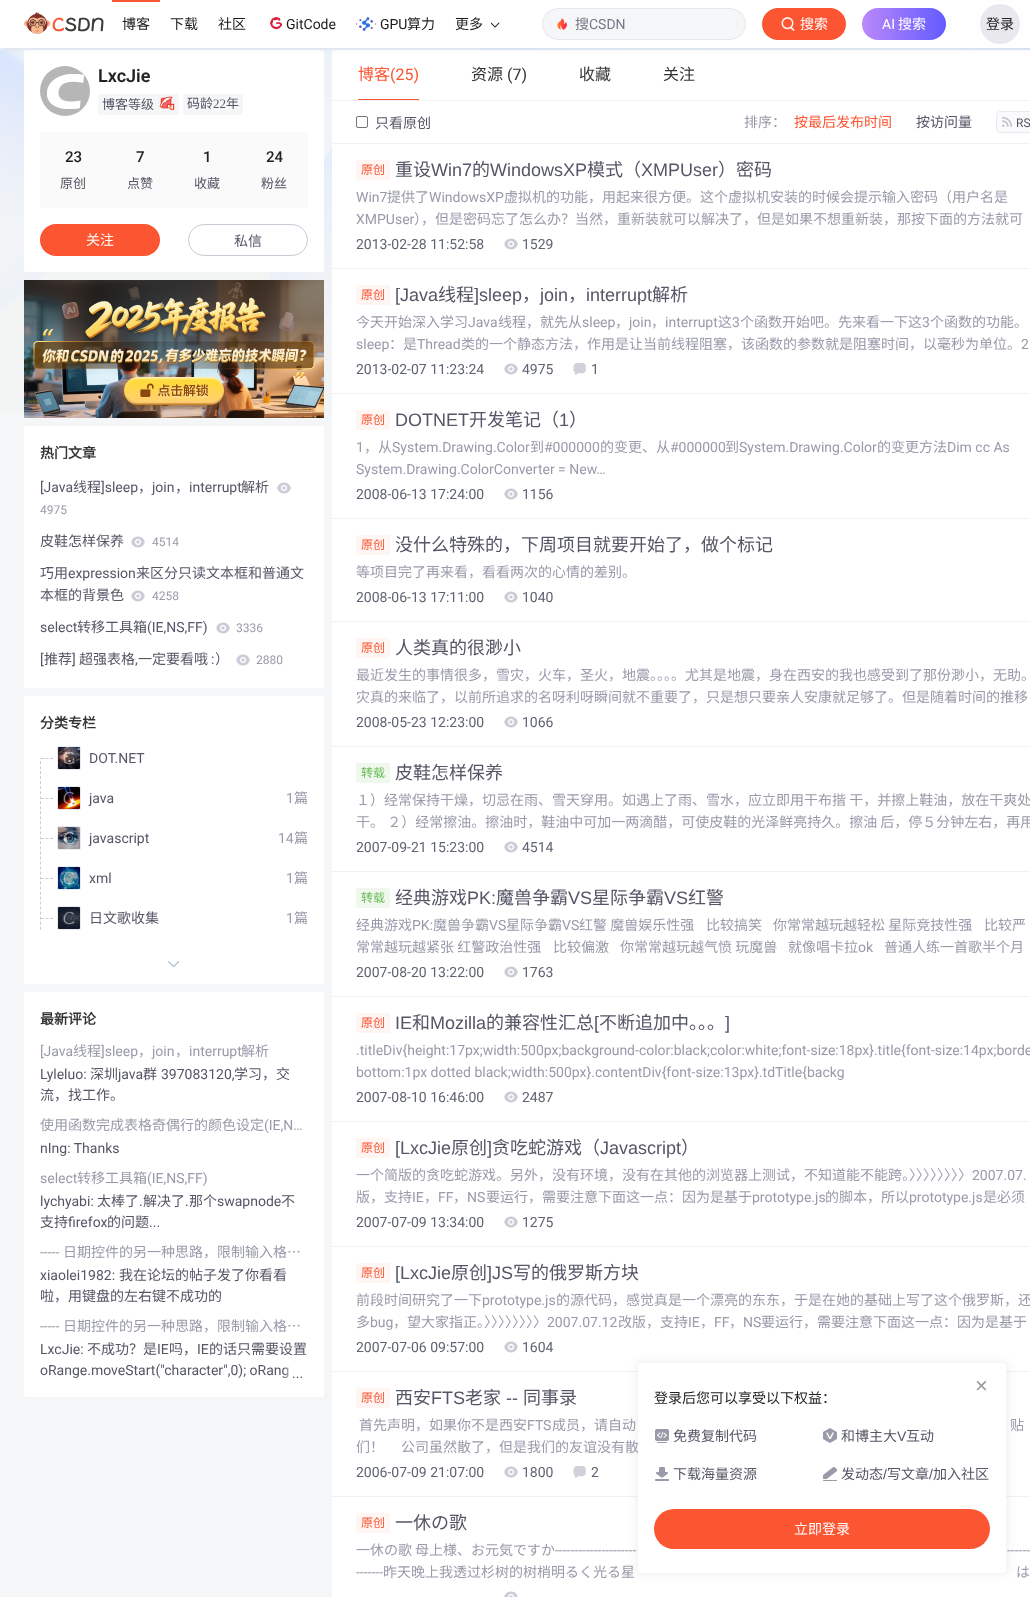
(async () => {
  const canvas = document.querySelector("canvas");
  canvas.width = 1030;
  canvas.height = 1597;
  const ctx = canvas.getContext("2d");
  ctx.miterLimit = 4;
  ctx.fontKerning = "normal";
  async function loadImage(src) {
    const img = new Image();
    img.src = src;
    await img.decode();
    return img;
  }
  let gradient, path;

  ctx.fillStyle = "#f5f6f7";
  ctx.fillRect(0, 0, 1030, 1597);
  ctx.drawImage(await loadImage("img/1.png"), 0, 50, 332, 363);
  ctx.drawImage(await loadImage("img/8.png"), 0, 48, 1030, 2);
  ctx.fillStyle = "#ffffff";
  ctx.beginPath();
  ctx.roundRect(24, 50, 300, 222, 2);
  ctx.fill();
  ctx.fillRect(332, 50, 698, 50);
  ctx.fillStyle = "rgba(0, 0, 0, 0.05)";
  ctx.filter = "blur(2px)";
  ctx.beginPath();
  ctx.rect(0, 2, 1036, 48);
  ctx.fill();
  ctx.filter = "none";
  ctx.fillStyle = "#ffffff";
  ctx.fillRect(0, 0, 1030, 48);
  ctx.drawImage(await loadImage("img/2.png"), 24, 12, 80, 22);
  ctx.fillStyle = "#fc5531";
  ctx.fillRect(112, 0, 48, 2);
  ctx.drawImage(await loadImage("img/3.png"), 270, 17, 13, 13);
  ctx.drawImage(await loadImage("img/4.png"), 356, 17, 20, 14);
  ctx.drawImage(await loadImage("img/5.png"), 491, 22, 9, 6);
  ctx.fillStyle = "#f5f6f7";
  ctx.beginPath();
  ctx.roundRect(542.5, 8.5, 203, 31, 15.5);
  ctx.fill();
  ctx.strokeStyle = "#e8e8ed";
  ctx.stroke();
  ctx.drawImage(await loadImage("img/6.png"), 557, 18, 10, 12);
  ctx.fillStyle = "#fc5531";
  ctx.beginPath();
  ctx.roundRect(762, 8, 84, 32, 16);
  ctx.fill();
  ctx.drawImage(await loadImage("img/7.png"), 781, 17, 14, 15);
  gradient = ctx.createLinearGradient(862, 24, 946, 24);
  gradient.addColorStop(0, "#ba88fa");
  gradient.addColorStop(1, "#635bff");
  ctx.fillStyle = gradient;
  ctx.beginPath();
  ctx.roundRect(862, 8, 84, 32, 16);
  ctx.fill();
  ctx.fillStyle = "#e8e8ed";
  ctx.beginPath();
  ctx.arc(1000, 24, 20, 0, Math.PI * 2);
  ctx.fill();
  ctx.drawImage(await loadImage("img/9.png"), 40, 66, 50, 50);
  ctx.fillStyle = "#f5f6f7";
  ctx.beginPath();
  ctx.roundRect(98, 94, 81, 21, 2);
  ctx.fill();
  ctx.drawImage(await loadImage("img/10.png"), 159, 96, 16, 14);
  ctx.beginPath();
  ctx.roundRect(183, 94, 60, 21, 2);
  ctx.fill();
  ctx.fillStyle = "#fafafa";
  ctx.beginPath();
  ctx.roundRect(40, 132, 268, 76, 2);
  ctx.fill();
  ctx.fillStyle = "#fc5531";
  ctx.beginPath();
  ctx.roundRect(40, 224, 120, 32, 16);
  ctx.fill();
  ctx.beginPath();
  ctx.roundRect(188.5, 224.5, 119, 31, 15.5);
  ctx.strokeStyle = "#ccccd8";
  ctx.stroke();
  ctx.drawImage(await loadImage("img/11.png"), 24, 280, 300, 138);
  ctx.fillStyle = "#ffffff";
  ctx.beginPath();
  ctx.roundRect(24, 426, 300, 262, 2);
  ctx.fill();
  ctx.drawImage(await loadImage("img/12.png"), 277, 482, 14, 12);
  ctx.drawImage(await loadImage("img/12.png"), 131, 536, 14, 12);
  ctx.drawImage(await loadImage("img/12.png"), 131, 590, 14, 12);
  ctx.drawImage(await loadImage("img/12.png"), 216, 622, 14, 12);
  ctx.drawImage(await loadImage("img/12.png"), 236, 654, 14, 12);
  ctx.beginPath();
  ctx.roundRect(24, 696, 300, 288, 2);
  ctx.fill();
  ctx.save();
  ctx.beginPath();
  ctx.rect(24, 734, 300, 208);
  ctx.clip();
  path = new Path2D("M40.5 746V1050");
  ctx.setLineDash([3, 2.02]);
  ctx.stroke(path);
  ctx.restore();
  ctx.fillRect(40, 746, 1, 12);
  path = new Path2D("M41 758.5H44M45.5 758.5H48.5M50 758.5H53");
  ctx.stroke(path);
  ctx.beginPath();
  ctx.roundRect(57.5, 746.5, 23, 23, 1.5);
  ctx.strokeStyle = "#e8e8ed";
  ctx.stroke();
  ctx.drawImage(await loadImage("img/13.png"), 58, 747, 22, 22);
  path = new Path2D("M41 798.5H44M45.5 798.5H48.5M50 798.5H53");
  ctx.strokeStyle = "#ccccd8";
  ctx.stroke(path);
  ctx.beginPath();
  ctx.roundRect(57.5, 786.5, 23, 23, 1.5);
  ctx.strokeStyle = "#e8e8ed";
  ctx.stroke();
  ctx.drawImage(await loadImage("img/14.png"), 58, 787, 22, 22);
  path = new Path2D("M41 838.5H44M45.5 838.5H48.5M50 838.5H53");
  ctx.strokeStyle = "#ccccd8";
  ctx.stroke(path);
  ctx.beginPath();
  ctx.roundRect(57.5, 826.5, 23, 23, 1.5);
  ctx.strokeStyle = "#e8e8ed";
  ctx.stroke();
  ctx.drawImage(await loadImage("img/15.png"), 58, 827, 22, 22);
  path = new Path2D("M41 878.5H44M45.5 878.5H48.5M50 878.5H53");
  ctx.strokeStyle = "#ccccd8";
  ctx.stroke(path);
  ctx.beginPath();
  ctx.roundRect(57.5, 866.5, 23, 23, 1.5);
  ctx.strokeStyle = "#e8e8ed";
  ctx.stroke();
  ctx.drawImage(await loadImage("img/16.png"), 58, 867, 22, 22);
  path = new Path2D("M41 918.5H44M45.5 918.5H48.5M50 918.5H53");
  ctx.strokeStyle = "#ccccd8";
  ctx.stroke(path);
  ctx.beginPath();
  ctx.roundRect(57.5, 906.5, 23, 23, 1.5);
  ctx.strokeStyle = "#e8e8ed";
  ctx.stroke();
  ctx.drawImage(await loadImage("img/17.png"), 58, 907, 22, 22);
  ctx.fillRect(40, 930, 1, 12);
  ctx.drawImage(await loadImage("img/18.png"), 168, 961, 12, 7);
  ctx.beginPath();
  ctx.roundRect(24, 992, 300, 405, 2);
  ctx.fill();
  for (const [x, y, w, h, color] of [
    [332, 100, 698, 1, "#f0f2f5"],
    [358, 99, 61, 1, "#fc5531"],
    [332, 101, 698, 42, "#ffffff"],
  ]) {
    ctx.fillStyle = color;
    ctx.fillRect(x, y, w, h);
  }
  ctx.beginPath();
  ctx.roundRect(356.5, 116.5, 11, 11, 1.5);
  ctx.strokeStyle = "#767676";
  ctx.stroke();
  ctx.fillStyle = "#fafafc";
  ctx.beginPath();
  ctx.roundRect(996.5, 111.5, 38, 21, 3.5);
  ctx.fill();
  ctx.strokeStyle = "#eaeaef";
  ctx.stroke();
  ctx.drawImage(await loadImage("img/19.png"), 1002, 117, 10, 10);
  for (const [x, y, w, h, color] of [
    [332, 144, 698, 1453, "#ffffff"],
    [332, 143, 698, 1, "#f0f2f5"],
    [332, 268, 698, 1, "#f0f2f5"],
  ]) {
    ctx.fillStyle = color;
    ctx.fillRect(x, y, w, h);
  }
  ctx.fillStyle = "#fff5f2";
  ctx.beginPath();
  ctx.roundRect(356, 160, 34, 20, 2);
  ctx.fill();
  ctx.drawImage(await loadImage("img/12.png"), 504, 238, 14, 12);
  ctx.fillStyle = "#f0f2f5";
  ctx.fillRect(332, 393, 698, 1);
  ctx.fillStyle = "#fff5f2";
  ctx.beginPath();
  ctx.roundRect(356, 285, 34, 20, 2);
  ctx.fill();
  ctx.drawImage(await loadImage("img/12.png"), 504, 363, 14, 12);
  ctx.drawImage(await loadImage("img/20.png"), 573, 363, 13, 12);
  ctx.fillStyle = "#f0f2f5";
  ctx.fillRect(332, 518, 698, 1);
  ctx.fillStyle = "#fff5f2";
  ctx.beginPath();
  ctx.roundRect(356, 410, 34, 20, 2);
  ctx.fill();
  ctx.drawImage(await loadImage("img/12.png"), 504, 488, 14, 12);
  ctx.fillStyle = "#f0f2f5";
  ctx.fillRect(332, 621, 698, 1);
  ctx.fillStyle = "#fff5f2";
  ctx.beginPath();
  ctx.roundRect(356, 535, 34, 20, 2);
  ctx.fill();
  ctx.drawImage(await loadImage("img/12.png"), 504, 591, 14, 12);
  ctx.fillStyle = "#f0f2f5";
  ctx.fillRect(332, 746, 698, 1);
  ctx.fillStyle = "#fff5f2";
  ctx.beginPath();
  ctx.roundRect(356, 638, 34, 20, 2);
  ctx.fill();
  ctx.drawImage(await loadImage("img/12.png"), 504, 716, 14, 12);
  ctx.fillStyle = "#f0f2f5";
  ctx.fillRect(332, 871, 698, 1);
  ctx.fillStyle = "#f0f8ee";
  ctx.beginPath();
  ctx.roundRect(356, 763, 34, 20, 2);
  ctx.fill();
  ctx.drawImage(await loadImage("img/12.png"), 504, 841, 14, 12);
  ctx.fillStyle = "#f0f2f5";
  ctx.fillRect(332, 996, 698, 1);
  ctx.fillStyle = "#f0f8ee";
  ctx.beginPath();
  ctx.roundRect(356, 888, 34, 20, 2);
  ctx.fill();
  ctx.drawImage(await loadImage("img/12.png"), 504, 966, 14, 12);
  ctx.fillStyle = "#f0f2f5";
  ctx.fillRect(332, 1121, 698, 1);
  ctx.fillStyle = "#fff5f2";
  ctx.beginPath();
  ctx.roundRect(356, 1013, 34, 20, 2);
  ctx.fill();
  ctx.drawImage(await loadImage("img/12.png"), 504, 1091, 14, 12);
  ctx.fillStyle = "#f0f2f5";
  ctx.fillRect(332, 1246, 698, 1);
  ctx.fillStyle = "#fff5f2";
  ctx.beginPath();
  ctx.roundRect(356, 1138, 34, 20, 2);
  ctx.fill();
  ctx.drawImage(await loadImage("img/12.png"), 504, 1216, 14, 12);
  ctx.fillStyle = "#f0f2f5";
  ctx.fillRect(332, 1371, 698, 1);
  ctx.fillStyle = "#fff5f2";
  ctx.beginPath();
  ctx.roundRect(356, 1263, 34, 20, 2);
  ctx.fill();
  ctx.drawImage(await loadImage("img/12.png"), 504, 1341, 14, 12);
  ctx.fillStyle = "#f0f2f5";
  ctx.fillRect(332, 1496, 698, 1);
  ctx.fillStyle = "#fff5f2";
  ctx.beginPath();
  ctx.roundRect(356, 1388, 34, 20, 2);
  ctx.fill();
  ctx.drawImage(await loadImage("img/12.png"), 504, 1466, 14, 12);
  ctx.drawImage(await loadImage("img/20.png"), 573, 1466, 13, 12);
  ctx.beginPath();
  ctx.roundRect(356, 1513, 34, 20, 2);
  ctx.fill();
  ctx.drawImage(await loadImage("img/21.png"), 504, 1591, 14, 6);
  ctx.fillStyle = "rgba(0, 0, 0, 0.06)";
  ctx.filter = "blur(5px)";
  ctx.beginPath();
  ctx.roundRect(636, 1361, 372, 214, 6);
  ctx.fill();
  ctx.filter = "none";
  ctx.font = "14px Noto Sans CJK SC";
  ctx.fillStyle = "#1a1a1a";
  for (const [text, x, y] of [
    ["博客", 122, 29],
    ["下载", 170, 29],
    ["社区", 218, 29],
  ]) {
    ctx.fillText(text, x, y);
  }
  ctx.font = "14px Roboto";
  ctx.fillText("GitCode", 286, 29);
  ctx.fillText("GPU", 380, 29);
  ctx.font = "14px Noto Sans CJK SC";
  ctx.fillText("算力", 407, 29);
  ctx.fillText("更多", 455, 29);
  ctx.fillStyle = "#777888";
  ctx.fillText("搜", 575, 29);
  ctx.font = "14px Roboto";
  ctx.fillText("CSDN", 589, 29);
  ctx.font = "14px Noto Sans CJK SC";
  ctx.fillStyle = "#ffffff";
  ctx.fillText("搜索", 800, 29);
  ctx.font = "14px Roboto";
  ctx.fillText("AI", 882, 29);
  ctx.font = "14px Noto Sans CJK SC";
  ctx.fillText("搜索", 898, 29);
  ctx.fillStyle = "#222226";
  ctx.fillText("登录", 986, 29);
  ctx.font = "600 18px Roboto";
  ctx.fillText("LxcJie", 98, 82);
  ctx.font = "13px Noto Sans CJK SC";
  ctx.fillStyle = "#555666";
  ctx.fillText("博客等级", 102, 109);
  ctx.fillText("码龄", 187, 108);
  ctx.font = "13px Liberation Serif";
  ctx.fillText("22", 213, 108);
  ctx.font = "13px Noto Sans CJK SC";
  ctx.fillText("年", 226, 108);
  ctx.font = "500 15px Roboto";
  ctx.fillStyle = "#222226";
  ctx.fillText("23", 65, 162);
  ctx.font = "13px Noto Sans CJK SC";
  ctx.fillStyle = "#555666";
  ctx.fillText("原创", 60, 188);
  ctx.font = "500 15px Roboto";
  ctx.fillStyle = "#222226";
  ctx.fillText("7", 136, 162);
  ctx.font = "13px Noto Sans CJK SC";
  ctx.fillStyle = "#555666";
  ctx.fillText("点赞", 127, 188);
  ctx.font = "500 15px Roboto";
  ctx.fillStyle = "#222226";
  ctx.fillText("1", 203, 162);
  ctx.font = "13px Noto Sans CJK SC";
  ctx.fillStyle = "#555666";
  ctx.fillText("收藏", 194, 188);
  ctx.font = "500 15px Roboto";
  ctx.fillStyle = "#222226";
  ctx.fillText("24", 266, 162);
  ctx.font = "13px Noto Sans CJK SC";
  ctx.fillStyle = "#555666";
  ctx.fillText("粉丝", 261, 188);
  ctx.font = "14px Noto Sans CJK SC";
  ctx.fillStyle = "#ffffff";
  ctx.fillText("关注", 86, 245);
  ctx.fillStyle = "#555666";
  ctx.fillText("私信", 234, 246);
  ctx.font = "bold 14px Noto Sans CJK SC";
  ctx.fillStyle = "#333333";
  ctx.fillText("热门文章", 40, 458);
  ctx.font = "14px Roboto";
  ctx.fillStyle = "#555666";
  ctx.fillText("[Java", 40, 492);
  ctx.font = "14px Noto Sans CJK SC";
  ctx.fillText("线程", 73, 492);
  ctx.font = "14px Roboto";
  ctx.fillText("]sleep", 101, 492);
  ctx.font = "14px Noto Sans CJK SC";
  ctx.fillText("，", 138, 492);
  ctx.font = "14px Roboto";
  ctx.fillText("join", 152, 492);
  ctx.font = "14px Noto Sans CJK SC";
  ctx.fillText("，", 175, 492);
  ctx.font = "14px Roboto";
  ctx.fillText("interrupt", 189, 492);
  ctx.font = "14px Noto Sans CJK SC";
  ctx.fillText("解析", 241, 492);
  ctx.font = "12px Roboto";
  ctx.fillStyle = "#999aaa";
  ctx.fillText("4975", 40, 514);
  ctx.font = "14px Noto Sans CJK SC";
  ctx.fillStyle = "#555666";
  ctx.fillText("皮鞋怎样保养", 40, 546);
  ctx.font = "12px Roboto";
  ctx.fillStyle = "#999aaa";
  ctx.fillText("4514", 152, 546);
  ctx.font = "14px Noto Sans CJK SC";
  ctx.fillStyle = "#555666";
  ctx.fillText("巧用", 40, 578);
  ctx.font = "14px Roboto";
  ctx.fillText("expression", 68, 578);
  ctx.font = "14px Noto Sans CJK SC";
  ctx.fillText("来区分只读文本框和普通文", 136, 578);
  ctx.fillText("本框的背景色", 40, 600);
  ctx.font = "12px Roboto";
  ctx.fillStyle = "#999aaa";
  ctx.fillText("4258", 152, 600);
  ctx.font = "14px Roboto";
  ctx.fillStyle = "#555666";
  ctx.fillText("select", 40, 632);
  ctx.font = "14px Noto Sans CJK SC";
  ctx.fillText("转移工具箱", 77, 632);
  ctx.font = "14px Roboto";
  ctx.fillText("(IE,NS,FF)", 147, 632);
  ctx.font = "12px Roboto";
  ctx.fillStyle = "#999aaa";
  ctx.fillText("3336", 236, 632);
  ctx.font = "14px Roboto";
  ctx.fillStyle = "#555666";
  ctx.fillText("[", 40, 664);
  ctx.font = "14px Noto Sans CJK SC";
  ctx.fillText("推荐", 44, 664);
  ctx.font = "14px Roboto";
  ctx.fillText("]", 72, 664);
  ctx.font = "14px Noto Sans CJK SC";
  ctx.fillText("超强表格", 79, 664);
  ctx.font = "14px Roboto";
  ctx.fillText(",", 135, 664);
  ctx.font = "14px Noto Sans CJK SC";
  ctx.fillText("一定要看哦", 138, 664);
  ctx.font = "14px Roboto";
  ctx.fillText(":", 211, 664);
  ctx.font = "14px Noto Sans CJK SC";
  ctx.fillText("）", 215, 664);
  ctx.font = "12px Roboto";
  ctx.fillStyle = "#999aaa";
  ctx.fillText("2880", 256, 664);
  ctx.font = "bold 14px Noto Sans CJK SC";
  ctx.fillStyle = "#333333";
  ctx.fillText("分类专栏", 40, 728);
  ctx.font = "14px Roboto";
  ctx.fillStyle = "#555666";
  ctx.fillText("DOT.NET", 89, 763);
  ctx.fillText("java", 89, 803);
  ctx.fillStyle = "#999aaa";
  ctx.fillText("1", 286, 803);
  ctx.font = "14px Noto Sans CJK SC";
  ctx.fillText("篇", 294, 803);
  ctx.font = "14px Roboto";
  ctx.fillStyle = "#555666";
  ctx.fillText("javascript", 89, 843);
  ctx.fillStyle = "#999aaa";
  ctx.fillText("14", 278, 843);
  ctx.font = "14px Noto Sans CJK SC";
  ctx.fillText("篇", 294, 843);
  ctx.font = "14px Roboto";
  ctx.fillStyle = "#555666";
  ctx.fillText("xml", 89, 883);
  ctx.fillStyle = "#999aaa";
  ctx.fillText("1", 286, 883);
  ctx.font = "14px Noto Sans CJK SC";
  ctx.fillText("篇", 294, 883);
  ctx.fillStyle = "#555666";
  ctx.fillText("日文歌收集", 89, 923);
  ctx.font = "14px Roboto";
  ctx.fillStyle = "#999aaa";
  ctx.fillText("1", 286, 923);
  ctx.font = "14px Noto Sans CJK SC";
  ctx.fillText("篇", 294, 923);
  ctx.font = "bold 14px Noto Sans CJK SC";
  ctx.fillStyle = "#333333";
  ctx.fillText("最新评论", 40, 1024);
  ctx.font = "14px Roboto";
  ctx.fillStyle = "#999aaa";
  ctx.fillText("[Java", 40, 1056);
  ctx.font = "14px Noto Sans CJK SC";
  ctx.fillText("线程", 73, 1056);
  ctx.font = "14px Roboto";
  ctx.fillText("]sleep", 101, 1056);
  ctx.font = "14px Noto Sans CJK SC";
  ctx.fillText("，", 138, 1056);
  ctx.font = "14px Roboto";
  ctx.fillText("join", 152, 1056);
  ctx.font = "14px Noto Sans CJK SC";
  ctx.fillText("，", 175, 1056);
  ctx.font = "14px Roboto";
  ctx.fillText("interrupt", 189, 1056);
  ctx.font = "14px Noto Sans CJK SC";
  ctx.fillText("解析", 241, 1056);
  ctx.font = "14px Roboto";
  ctx.fillStyle = "#555666";
  ctx.fillText("Lyleluo:", 40, 1079);
  ctx.font = "14px Noto Sans CJK SC";
  ctx.fillText("深圳", 90, 1079);
  ctx.font = "14px Roboto";
  ctx.fillText("java", 118, 1079);
  ctx.font = "14px Noto Sans CJK SC";
  ctx.fillText("群", 143, 1079);
  ctx.font = "14px Roboto";
  ctx.fillText("397083120,", 161, 1079);
  ctx.font = "14px Noto Sans CJK SC";
  ctx.fillText("学习，交", 234, 1079);
  ctx.fillText("流，找工作。", 40, 1100);
  ctx.fillStyle = "#999aaa";
  ctx.fillText("使用函数完成表格奇偶行的颜色设定", 40, 1130);
  ctx.font = "14px Roboto";
  ctx.fillText("(IE,N…", 264, 1130);
  ctx.fillStyle = "#555666";
  ctx.fillText("nIng: Thanks", 40, 1153);
  ctx.fillStyle = "#999aaa";
  ctx.fillText("select", 40, 1183);
  ctx.font = "14px Noto Sans CJK SC";
  ctx.fillText("转移工具箱", 77, 1183);
  ctx.font = "14px Roboto";
  ctx.fillText("(IE,NS,FF)", 147, 1183);
  ctx.fillStyle = "#555666";
  ctx.fillText("lychyabi:", 40, 1206);
  ctx.font = "14px Noto Sans CJK SC";
  ctx.fillText("太棒了", 97, 1206);
  ctx.font = "14px Roboto";
  ctx.fillText(".", 139, 1206);
  ctx.font = "14px Noto Sans CJK SC";
  ctx.fillText("解决了", 143, 1206);
  ctx.font = "14px Roboto";
  ctx.fillText(".", 185, 1206);
  ctx.font = "14px Noto Sans CJK SC";
  ctx.fillText("那个", 189, 1206);
  ctx.font = "14px Roboto";
  ctx.fillText("swapnode", 217, 1206);
  ctx.font = "14px Noto Sans CJK SC";
  ctx.fillText("不", 281, 1206);
  ctx.fillText("支持", 40, 1227);
  ctx.font = "14px Roboto";
  ctx.fillText("firefox", 68, 1227);
  ctx.font = "14px Noto Sans CJK SC";
  ctx.fillText("的问题", 107, 1227);
  ctx.font = "14px Roboto";
  ctx.fillText("...", 149, 1227);
  ctx.fillStyle = "#999aaa";
  ctx.fillText("-----", 40, 1257);
  ctx.font = "14px Noto Sans CJK SC";
  ctx.fillText("日期控件的另一种思路，限制输入格…", 63, 1257);
  ctx.font = "14px Roboto";
  ctx.fillStyle = "#555666";
  ctx.fillText("xiaolei1982:", 40, 1280);
  ctx.font = "14px Noto Sans CJK SC";
  ctx.fillText("我在论坛的帖子发了你看看", 119, 1280);
  ctx.fillText("啦，用键盘的左右键不成功的", 40, 1301);
  ctx.font = "14px Roboto";
  ctx.fillStyle = "#999aaa";
  ctx.fillText("-----", 40, 1331);
  ctx.font = "14px Noto Sans CJK SC";
  ctx.fillText("日期控件的另一种思路，限制输入格…", 63, 1331);
  ctx.font = "14px Roboto";
  ctx.fillStyle = "#555666";
  ctx.fillText("LxcJie:", 40, 1354);
  ctx.font = "14px Noto Sans CJK SC";
  ctx.fillText("不成功？是", 87, 1354);
  ctx.font = "14px Roboto";
  ctx.fillText("IE", 157, 1354);
  ctx.font = "14px Noto Sans CJK SC";
  ctx.fillText("吗，", 169, 1354);
  ctx.font = "14px Roboto";
  ctx.fillText("IE", 197, 1354);
  ctx.font = "14px Noto Sans CJK SC";
  ctx.fillText("的话只需要设置", 209, 1354);
  ctx.font = "14px Roboto";
  ctx.fillText("oRange.moveStart(\"character\",0); oRang", 40, 1375);
  gradient = ctx.createLinearGradient(284, 1372, 308, 1372);
  gradient.addColorStop(0, "rgba(255, 255, 255, 0)");
  gradient.addColorStop(0.4, "#ffffff");
  ctx.fillStyle = gradient;
  ctx.fillRect(284, 1367, 5, 11);
  ctx.fillStyle = "#555666";
  ctx.fillText("...", 292, 1378);
  ctx.font = "16px Noto Sans CJK SC";
  ctx.fillStyle = "#fc5531";
  ctx.fillText("博客", 358, 80);
  ctx.font = "16px Roboto";
  ctx.fillText("(25)", 390, 80);
  ctx.font = "16px Noto Sans CJK SC";
  ctx.fillStyle = "#333333";
  ctx.fillText("资源", 471, 80);
  ctx.font = "16px Roboto";
  ctx.fillText("(7)", 507, 80);
  ctx.font = "16px Noto Sans CJK SC";
  ctx.fillText("收藏", 579, 80);
  ctx.fillText("关注", 663, 80);
  ctx.font = "14px Noto Sans CJK SC";
  ctx.fillStyle = "#555666";
  ctx.fillText("只看原创", 375, 128);
  ctx.fillStyle = "#999aaa";
  ctx.fillText("排序：", 744, 127);
  ctx.fillStyle = "#fc5531";
  ctx.fillText("按最后发布时间", 794, 127);
  ctx.fillStyle = "#555666";
  ctx.fillText("按访问量", 916, 127);
  ctx.font = "12px Roboto";
  ctx.fillText("RS", 1016, 127);
  ctx.font = "12px Noto Sans CJK SC";
  ctx.fillStyle = "#fc5531";
  ctx.fillText("原创", 361, 174);
  ctx.font = "18px Noto Sans CJK SC";
  ctx.fillStyle = "#555666";
  ctx.fillText("重设", 395, 176);
  ctx.font = "18px Liberation Sans";
  ctx.fillText("Win7", 431, 176);
  ctx.font = "18px Noto Sans CJK SC";
  ctx.fillText("的", 472, 176);
  ctx.font = "18px Liberation Sans";
  ctx.fillText("WindowsXP", 490, 176);
  ctx.font = "18px Noto Sans CJK SC";
  ctx.fillText("模式（", 587, 176);
  ctx.font = "18px Liberation Sans";
  ctx.fillText("XMPUser", 641, 176);
  ctx.font = "18px Noto Sans CJK SC";
  ctx.fillText("）密码", 718, 176);
  ctx.font = "14px Roboto";
  ctx.fillStyle = "#999aaa";
  ctx.fillText("Win7", 356, 202);
  ctx.font = "14px Noto Sans CJK SC";
  ctx.fillText("提供了", 387, 202);
  ctx.font = "14px Roboto";
  ctx.fillText("WindowsXP", 429, 202);
  ctx.font = "14px Noto Sans CJK SC";
  ctx.fillText("虚拟机的功能，用起来很方便。这个虚拟机安装的时候会提示输入密码（用户名是", 504, 202);
  ctx.font = "14px Roboto";
  ctx.fillText("XMPUser", 356, 224);
  ctx.font = "14px Noto Sans CJK SC";
  ctx.fillText("），但是密码忘了怎么办？当然，重新装就可以解决了，但是如果不想重新装，那按下面的方法就可", 414, 224);
  ctx.font = "14px Roboto";
  ctx.fillStyle = "#5f6471";
  ctx.fillText("2013-02-28 11:52:58", 356, 249);
  ctx.fillText("1529", 522, 249);
  ctx.font = "12px Noto Sans CJK SC";
  ctx.fillStyle = "#fc5531";
  ctx.fillText("原创", 361, 299);
  ctx.font = "18px Liberation Sans";
  ctx.fillStyle = "#555666";
  ctx.fillText("[Java", 395, 301);
  ctx.font = "18px Noto Sans CJK SC";
  ctx.fillText("线程", 438, 301);
  ctx.font = "18px Liberation Sans";
  ctx.fillText("]sleep", 474, 301);
  ctx.font = "18px Noto Sans CJK SC";
  ctx.fillText("，", 522, 301);
  ctx.font = "18px Liberation Sans";
  ctx.fillText("join", 540, 301);
  ctx.font = "18px Noto Sans CJK SC";
  ctx.fillText("，", 568, 301);
  ctx.font = "18px Liberation Sans";
  ctx.fillText("interrupt", 586, 301);
  ctx.font = "18px Noto Sans CJK SC";
  ctx.fillText("解析", 652, 301);
  ctx.font = "14px Noto Sans CJK SC";
  ctx.fillStyle = "#999aaa";
  ctx.fillText("今天开始深入学习", 356, 327);
  ctx.font = "14px Roboto";
  ctx.fillText("Java", 468, 327);
  ctx.font = "14px Noto Sans CJK SC";
  ctx.fillText("线程，就先从", 498, 327);
  ctx.font = "14px Roboto";
  ctx.fillText("sleep", 582, 327);
  ctx.font = "14px Noto Sans CJK SC";
  ctx.fillText("，", 615, 327);
  ctx.font = "14px Roboto";
  ctx.fillText("join", 629, 327);
  ctx.font = "14px Noto Sans CJK SC";
  ctx.fillText("，", 651, 327);
  ctx.font = "14px Roboto";
  ctx.fillText("interrupt", 665, 327);
  ctx.font = "14px Noto Sans CJK SC";
  ctx.fillText("这", 718, 327);
  ctx.font = "14px Roboto";
  ctx.fillText("3", 732, 327);
  ctx.font = "14px Noto Sans CJK SC";
  ctx.fillText("个函数开始吧。先来看一下这", 740, 327);
  ctx.font = "14px Roboto";
  ctx.fillText("3", 922, 327);
  ctx.font = "14px Noto Sans CJK SC";
  ctx.fillText("个函数的功能。", 930, 327);
  ctx.font = "14px Roboto";
  ctx.fillText("sleep", 356, 349);
  ctx.font = "14px Noto Sans CJK SC";
  ctx.fillText("：是", 389, 349);
  ctx.font = "14px Roboto";
  ctx.fillText("Thread", 417, 349);
  ctx.font = "14px Noto Sans CJK SC";
  ctx.fillText("类的一个静态方法，作用是让当前线程阻塞，该函数的参数就是阻塞时间，以毫秒为单位。", 461, 349);
  ctx.font = "14px Roboto";
  ctx.fillText("2", 1021, 349);
  ctx.fillStyle = "#5f6471";
  for (const [text, x, y] of [
    ["2013-02-07 11:23:24", 356, 374],
    ["4975", 522, 374],
    ["1", 591, 374],
  ]) {
    ctx.fillText(text, x, y);
  }
  ctx.font = "12px Noto Sans CJK SC";
  ctx.fillStyle = "#fc5531";
  ctx.fillText("原创", 361, 424);
  ctx.font = "18px Liberation Sans";
  ctx.fillStyle = "#555666";
  ctx.fillText("DOTNET", 395, 426);
  ctx.font = "18px Noto Sans CJK SC";
  ctx.fillText("开发笔记（", 469, 426);
  ctx.font = "18px Liberation Sans";
  ctx.fillText("1", 559, 426);
  ctx.font = "18px Noto Sans CJK SC";
  ctx.fillText("）", 569, 426);
  ctx.font = "14px Roboto";
  ctx.fillStyle = "#999aaa";
  ctx.fillText("1", 356, 452);
  ctx.font = "14px Noto Sans CJK SC";
  ctx.fillText("，从", 364, 452);
  ctx.font = "14px Roboto";
  ctx.fillText("System.Drawing.Color", 392, 452);
  ctx.font = "14px Noto Sans CJK SC";
  ctx.fillText("到", 530, 452);
  ctx.font = "14px Roboto";
  ctx.fillText("#000000", 544, 452);
  ctx.font = "14px Noto Sans CJK SC";
  ctx.fillText("的变更、从", 600, 452);
  ctx.font = "14px Roboto";
  ctx.fillText("#000000", 670, 452);
  ctx.font = "14px Noto Sans CJK SC";
  ctx.fillText("到", 725, 452);
  ctx.font = "14px Roboto";
  ctx.fillText("System.Drawing.Color", 739, 452);
  ctx.font = "14px Noto Sans CJK SC";
  ctx.fillText("的变更方法", 877, 452);
  ctx.font = "14px Roboto";
  ctx.fillText("Dim cc As", 947, 452);
  ctx.fillText("System.Drawing.ColorConverter = New…", 356, 474);
  ctx.fillStyle = "#5f6471";
  ctx.fillText("2008-06-13 17:24:00", 356, 499);
  ctx.fillText("1156", 522, 499);
  ctx.font = "12px Noto Sans CJK SC";
  ctx.fillStyle = "#fc5531";
  ctx.fillText("原创", 361, 549);
  ctx.font = "18px Noto Sans CJK SC";
  ctx.fillStyle = "#555666";
  ctx.fillText("没什么特殊的，下周项目就要开始了，做个标记", 395, 551);
  ctx.font = "14px Noto Sans CJK SC";
  ctx.fillStyle = "#999aaa";
  ctx.fillText("等项目完了再来看，看看两次的心情的差别。", 356, 577);
  ctx.font = "14px Roboto";
  ctx.fillStyle = "#5f6471";
  ctx.fillText("2008-06-13 17:11:00", 356, 602);
  ctx.fillText("1040", 522, 602);
  ctx.font = "12px Noto Sans CJK SC";
  ctx.fillStyle = "#fc5531";
  ctx.fillText("原创", 361, 652);
  ctx.font = "18px Noto Sans CJK SC";
  ctx.fillStyle = "#555666";
  ctx.fillText("人类真的很渺小", 395, 654);
  ctx.font = "14px Noto Sans CJK SC";
  ctx.fillStyle = "#999aaa";
  ctx.fillText("最近发生的事情很多，雪灾，火车，圣火，地震。。。。尤其是地震，身在西安的我也感受到了那份渺小，无助。", 356, 680);
  ctx.fillText("灾真的来临了，以前所追求的名呀利呀瞬间就不重要了，只是想只要亲人安康就足够了。但是随着时间的推移", 356, 702);
  ctx.font = "14px Roboto";
  ctx.fillStyle = "#5f6471";
  ctx.fillText("2008-05-23 12:23:00", 356, 727);
  ctx.fillText("1066", 522, 727);
  ctx.font = "12px Noto Sans CJK SC";
  ctx.fillStyle = "#67bb55";
  ctx.fillText("转载", 361, 777);
  ctx.font = "18px Noto Sans CJK SC";
  ctx.fillStyle = "#555666";
  ctx.fillText("皮鞋怎样保养", 395, 779);
  ctx.font = "14px Noto Sans CJK SC";
  ctx.fillStyle = "#999aaa";
  ctx.fillText("１）经常保持干燥，切忌在雨、雪天穿用。如遇上了雨、雪水，应立即用干布揩 干，并擦上鞋油，放在干爽处", 356, 805);
  ctx.fillText("干。 ２）经常擦油。擦油时，鞋油中可加一两滴醋，可使皮鞋的光泽鲜亮持久。擦油 后，停５分钟左右，再用", 356, 827);
  ctx.font = "14px Roboto";
  ctx.fillStyle = "#5f6471";
  ctx.fillText("2007-09-21 15:23:00", 356, 852);
  ctx.fillText("4514", 522, 852);
  ctx.font = "12px Noto Sans CJK SC";
  ctx.fillStyle = "#67bb55";
  ctx.fillText("转载", 361, 902);
  ctx.font = "18px Noto Sans CJK SC";
  ctx.fillStyle = "#555666";
  ctx.fillText("经典游戏", 395, 904);
  ctx.font = "18px Liberation Sans";
  ctx.fillText("PK:", 467, 904);
  ctx.font = "18px Noto Sans CJK SC";
  ctx.fillText("魔兽争霸", 496, 904);
  ctx.font = "18px Liberation Sans";
  ctx.fillText("VS", 568, 904);
  ctx.font = "18px Noto Sans CJK SC";
  ctx.fillText("星际争霸", 592, 904);
  ctx.font = "18px Liberation Sans";
  ctx.fillText("VS", 664, 904);
  ctx.font = "18px Noto Sans CJK SC";
  ctx.fillText("红警", 688, 904);
  ctx.font = "14px Noto Sans CJK SC";
  ctx.fillStyle = "#999aaa";
  ctx.fillText("经典游戏", 356, 930);
  ctx.font = "14px Roboto";
  ctx.fillText("PK:", 412, 930);
  ctx.font = "14px Noto Sans CJK SC";
  ctx.fillText("魔兽争霸", 433, 930);
  ctx.font = "14px Roboto";
  ctx.fillText("VS", 489, 930);
  ctx.font = "14px Noto Sans CJK SC";
  ctx.fillText("星际争霸", 506, 930);
  ctx.font = "14px Roboto";
  ctx.fillText("VS", 562, 930);
  ctx.font = "14px Noto Sans CJK SC";
  for (const [text, x, y] of [
    ["红警 魔兽娱乐性强", 579, 930],
    ["比较搞笑", 706, 930],
    ["你常常越玩越轻松 星际竞技性强", 773, 930],
    ["比较严", 984, 930],
    ["常常越玩越紧张 红警政治性强", 356, 952],
    ["比较偏激", 553, 952],
    ["你常常越玩越气愤 玩魔兽", 620, 952],
    ["就像唱卡拉", 788, 952],
  ]) {
    ctx.fillText(text, x, y);
  }
  ctx.font = "14px Roboto";
  ctx.fillText("ok", 858, 952);
  ctx.font = "14px Noto Sans CJK SC";
  ctx.fillText("普通人练一首歌半个月", 884, 952);
  ctx.font = "14px Roboto";
  ctx.fillStyle = "#5f6471";
  ctx.fillText("2007-08-20 13:22:00", 356, 977);
  ctx.fillText("1763", 522, 977);
  ctx.font = "12px Noto Sans CJK SC";
  ctx.fillStyle = "#fc5531";
  ctx.fillText("原创", 361, 1027);
  ctx.font = "18px Liberation Sans";
  ctx.fillStyle = "#555666";
  ctx.fillText("IE", 395, 1029);
  ctx.font = "18px Noto Sans CJK SC";
  ctx.fillText("和", 412, 1029);
  ctx.font = "18px Liberation Sans";
  ctx.fillText("Mozilla", 430, 1029);
  ctx.font = "18px Noto Sans CJK SC";
  ctx.fillText("的兼容性汇总", 486, 1029);
  ctx.font = "18px Liberation Sans";
  ctx.fillText("[", 594, 1029);
  ctx.font = "18px Noto Sans CJK SC";
  ctx.fillText("不断追加中。。。", 599, 1029);
  ctx.font = "18px Liberation Sans";
  ctx.fillText("]", 725, 1029);
  ctx.font = "14px Roboto";
  ctx.fillStyle = "#999aaa";
  ctx.fillText(".titleDiv{height:17px;width:500px;background-color:black;color:white;font-size:18px}.title{font-size:14px;borde", 356, 1055);
  ctx.fillText("bottom:1px dotted black;width:500px}.contentDiv{font-size:13px}.tdTitle{backg", 356, 1077);
  ctx.fillStyle = "#5f6471";
  ctx.fillText("2007-08-10 16:46:00", 356, 1102);
  ctx.fillText("2487", 522, 1102);
  ctx.font = "12px Noto Sans CJK SC";
  ctx.fillStyle = "#fc5531";
  ctx.fillText("原创", 361, 1152);
  ctx.font = "18px Liberation Sans";
  ctx.fillStyle = "#555666";
  ctx.fillText("[LxcJie", 395, 1154);
  ctx.font = "18px Noto Sans CJK SC";
  ctx.fillText("原创", 451, 1154);
  ctx.font = "18px Liberation Sans";
  ctx.fillText("]", 487, 1154);
  ctx.font = "18px Noto Sans CJK SC";
  ctx.fillText("贪吃蛇游戏（", 492, 1154);
  ctx.font = "18px Liberation Sans";
  ctx.fillText("Javascript", 600, 1154);
  ctx.font = "18px Noto Sans CJK SC";
  ctx.fillText("）", 681, 1154);
  ctx.font = "14px Noto Sans CJK SC";
  ctx.fillStyle = "#999aaa";
  ctx.fillText("一个简版的贪吃蛇游戏。另外，没有环境，没有在其他的浏览器上测试，不知道能不能跨。〉〉〉〉〉〉〉〉", 356, 1180);
  ctx.font = "14px Roboto";
  ctx.fillText("2007.07.", 972, 1180);
  ctx.font = "14px Noto Sans CJK SC";
  ctx.fillText("版，支持", 356, 1202);
  ctx.font = "14px Roboto";
  ctx.fillText("IE", 412, 1202);
  ctx.font = "14px Noto Sans CJK SC";
  ctx.fillText("，", 424, 1202);
  ctx.font = "14px Roboto";
  ctx.fillText("FF", 438, 1202);
  ctx.font = "14px Noto Sans CJK SC";
  ctx.fillText("，", 453, 1202);
  ctx.font = "14px Roboto";
  ctx.fillText("NS", 467, 1202);
  ctx.font = "14px Noto Sans CJK SC";
  ctx.fillText("要运行，需要注意下面这一点：因为是基于", 486, 1202);
  ctx.font = "14px Roboto";
  ctx.fillText("prototype.js", 752, 1202);
  ctx.font = "14px Noto Sans CJK SC";
  ctx.fillText("的脚本，所以", 825, 1202);
  ctx.font = "14px Roboto";
  ctx.fillText("prototype.js", 909, 1202);
  ctx.font = "14px Noto Sans CJK SC";
  ctx.fillText("是必须", 983, 1202);
  ctx.font = "14px Roboto";
  ctx.fillStyle = "#5f6471";
  ctx.fillText("2007-07-09 13:34:00", 356, 1227);
  ctx.fillText("1275", 522, 1227);
  ctx.font = "12px Noto Sans CJK SC";
  ctx.fillStyle = "#fc5531";
  ctx.fillText("原创", 361, 1277);
  ctx.font = "18px Liberation Sans";
  ctx.fillStyle = "#555666";
  ctx.fillText("[LxcJie", 395, 1279);
  ctx.font = "18px Noto Sans CJK SC";
  ctx.fillText("原创", 451, 1279);
  ctx.font = "18px Liberation Sans";
  ctx.fillText("]JS", 487, 1279);
  ctx.font = "18px Noto Sans CJK SC";
  ctx.fillText("写的俄罗斯方块", 513, 1279);
  ctx.font = "14px Noto Sans CJK SC";
  ctx.fillStyle = "#999aaa";
  ctx.fillText("前段时间研究了一下", 356, 1305);
  ctx.font = "14px Roboto";
  ctx.fillText("prototype.js", 482, 1305);
  ctx.font = "14px Noto Sans CJK SC";
  ctx.fillText("的源代码，感觉真是一个漂亮的东东，于是在她的基础上写了这个俄罗斯，还", 556, 1305);
  ctx.fillText("多", 356, 1327);
  ctx.font = "14px Roboto";
  ctx.fillText("bug", 370, 1327);
  ctx.font = "14px Noto Sans CJK SC";
  ctx.fillText("，望大家指正。〉〉〉〉〉〉〉〉", 393, 1327);
  ctx.font = "14px Roboto";
  ctx.fillText("2007.07.12", 547, 1327);
  ctx.font = "14px Noto Sans CJK SC";
  ctx.fillText("改版，支持", 618, 1327);
  ctx.font = "14px Roboto";
  ctx.fillText("IE", 688, 1327);
  ctx.font = "14px Noto Sans CJK SC";
  ctx.fillText("，", 700, 1327);
  ctx.font = "14px Roboto";
  ctx.fillText("FF", 714, 1327);
  ctx.font = "14px Noto Sans CJK SC";
  ctx.fillText("，", 729, 1327);
  ctx.font = "14px Roboto";
  ctx.fillText("NS", 743, 1327);
  ctx.font = "14px Noto Sans CJK SC";
  ctx.fillText("要运行，需要注意下面这一点：因为是基于", 761, 1327);
  ctx.font = "14px Roboto";
  ctx.fillStyle = "#5f6471";
  ctx.fillText("2007-07-06 09:57:00", 356, 1352);
  ctx.fillText("1604", 522, 1352);
  ctx.font = "12px Noto Sans CJK SC";
  ctx.fillStyle = "#fc5531";
  ctx.fillText("原创", 361, 1402);
  ctx.font = "18px Noto Sans CJK SC";
  ctx.fillStyle = "#555666";
  ctx.fillText("西安", 395, 1404);
  ctx.font = "18px Liberation Sans";
  ctx.fillText("FTS", 431, 1404);
  ctx.font = "18px Noto Sans CJK SC";
  ctx.fillText("老家", 465, 1404);
  ctx.font = "18px Liberation Sans";
  ctx.fillText("--", 506, 1404);
  ctx.font = "18px Noto Sans CJK SC";
  ctx.fillText("同事录", 523, 1404);
  ctx.font = "14px Noto Sans CJK SC";
  ctx.fillStyle = "#999aaa";
  ctx.fillText("首先声明，如果你不是西安", 359, 1430);
  ctx.font = "14px Roboto";
  ctx.fillText("FTS", 527, 1430);
  ctx.font = "14px Noto Sans CJK SC";
  for (const [text, x, y] of [
    ["成员，请自动", 552, 1430],
    ["贴", 1010, 1430],
    ["们！", 356, 1452],
    ["公司虽然散了，但是我们的友谊没有散", 401, 1452],
  ]) {
    ctx.fillText(text, x, y);
  }
  ctx.font = "14px Roboto";
  ctx.fillStyle = "#5f6471";
  for (const [text, x, y] of [
    ["2006-07-09 21:07:00", 356, 1477],
    ["1800", 522, 1477],
    ["2", 591, 1477],
  ]) {
    ctx.fillText(text, x, y);
  }
  ctx.font = "12px Noto Sans CJK SC";
  ctx.fillStyle = "#fc5531";
  ctx.fillText("原创", 361, 1527);
  ctx.font = "18px Noto Sans CJK SC";
  ctx.fillStyle = "#555666";
  ctx.fillText("一休の歌", 395, 1529);
  ctx.font = "14px Noto Sans CJK SC";
  ctx.fillStyle = "#999aaa";
  ctx.fillText("一休の歌", 356, 1555);
  ctx.fillText("母上様、お元気ですか", 415, 1555);
  ctx.font = "14px Roboto";
  for (const [text, x, y] of [
    ["---------------------", 555, 1555],
    ["------", 1007, 1555],
    ["-------", 356, 1577],
  ]) {
    ctx.fillText(text, x, y);
  }
  ctx.font = "14px Noto Sans CJK SC";
  ctx.fillText("昨天晚上我透过杉树的树梢明るく光る星", 383, 1577);
  ctx.fillText("は", 1016, 1577);
  ctx.fillStyle = "#ffffff";
  ctx.beginPath();
  ctx.roundRect(638, 1363, 368, 210, 4);
  ctx.fill();
  ctx.font = "22px Liberation Sans";
  ctx.fillStyle = "#999999";
  ctx.fillText("×", 975, 1393);
  ctx.font = "14px Noto Sans CJK SC";
  ctx.fillStyle = "#222226";
  ctx.fillText("登录后您可以享受以下权益：", 654, 1403);
  ctx.drawImage(await loadImage("img/22.png"), 655, 1429, 14, 14);
  ctx.fillStyle = "#555666";
  ctx.fillText("免费复制代码", 673, 1441);
  ctx.drawImage(await loadImage("img/23.png"), 823, 1428, 14, 15);
  ctx.fillText("和博主大", 841, 1441);
  ctx.font = "14px Liberation Sans";
  ctx.fillText("V", 897, 1441);
  ctx.font = "14px Noto Sans CJK SC";
  ctx.fillText("互动", 906, 1441);
  ctx.drawImage(await loadImage("img/24.png"), 655, 1467, 14, 14);
  ctx.fillText("下载海量资源", 673, 1479);
  ctx.drawImage(await loadImage("img/25.png"), 823, 1467, 14, 14);
  ctx.fillText("发动态", 841, 1479);
  ctx.font = "14px Liberation Sans";
  ctx.fillText("/", 883, 1479);
  ctx.font = "14px Noto Sans CJK SC";
  ctx.fillText("写文章", 887, 1479);
  ctx.font = "14px Liberation Sans";
  ctx.fillText("/", 929, 1479);
  ctx.font = "14px Noto Sans CJK SC";
  ctx.fillText("加入社区", 933, 1479);
  ctx.fillStyle = "#fc5531";
  ctx.beginPath();
  ctx.roundRect(654, 1509, 336, 40, 20);
  ctx.fill();
  ctx.fillStyle = "#ffffff";
  ctx.fillText("立即登录", 794, 1534);
})();
